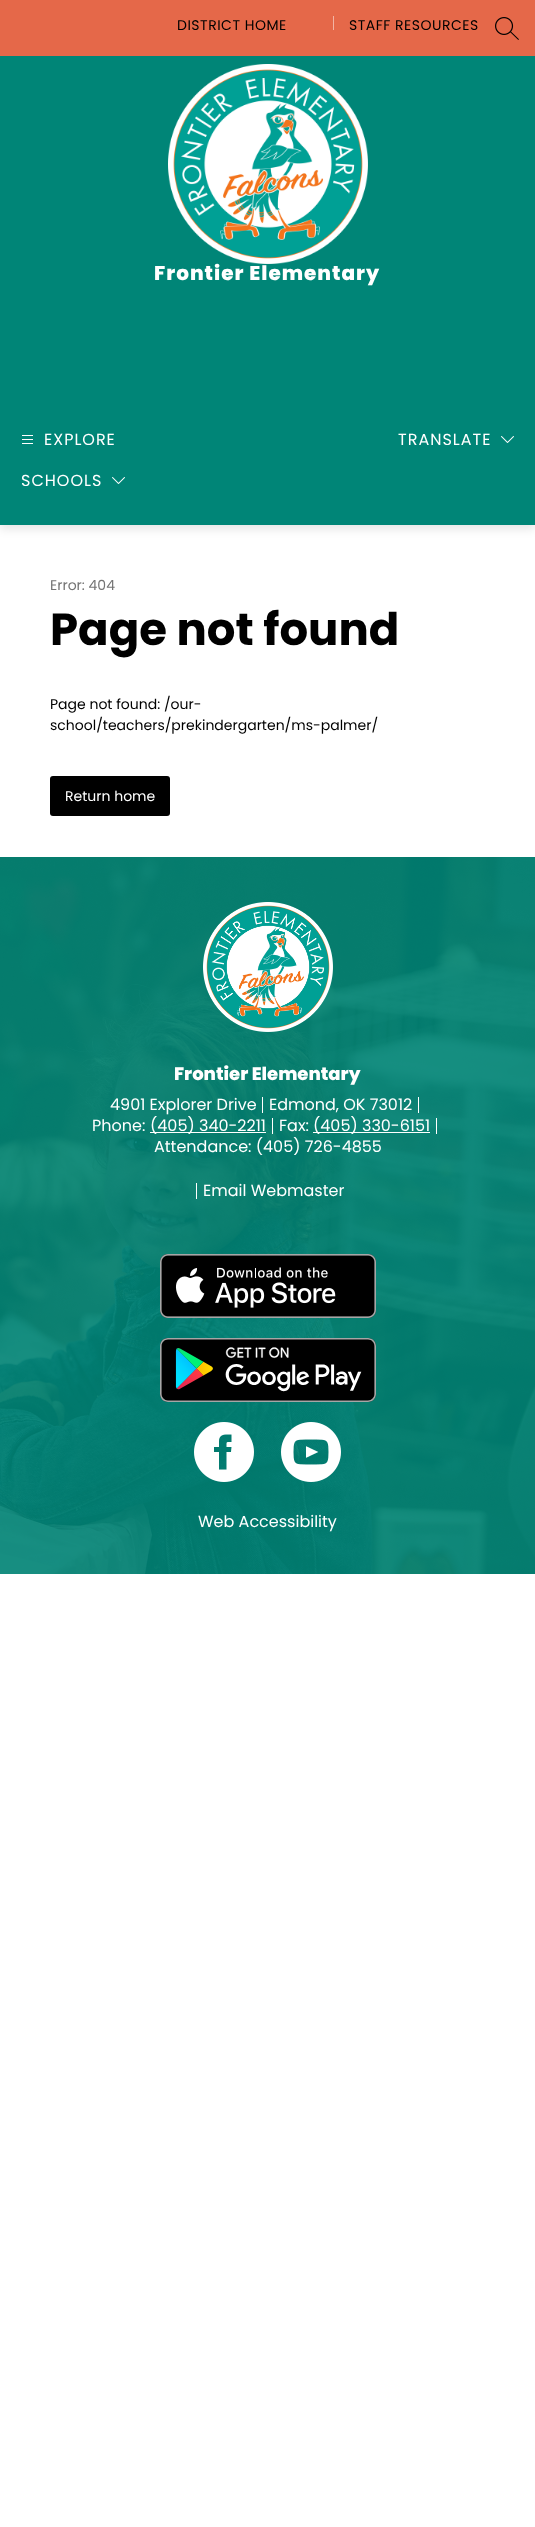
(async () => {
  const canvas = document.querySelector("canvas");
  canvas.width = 535;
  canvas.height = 2527;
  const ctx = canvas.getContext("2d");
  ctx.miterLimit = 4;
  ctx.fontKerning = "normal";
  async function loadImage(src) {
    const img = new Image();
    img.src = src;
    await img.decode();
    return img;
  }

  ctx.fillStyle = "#ffffff";
  ctx.fillRect(0, 0, 535, 2527);
  ctx.fillStyle = "rgba(0, 0, 0, 0.1)";
  ctx.filter = "blur(5px)";
  ctx.beginPath();
  ctx.rect(0, 4, 535, 525);
  ctx.fill();
  ctx.filter = "none";
  for (const [x, y, w, h, color] of [
    [0, 56, 535, 469, "#008577"],
    [0, 0, 535, 56, "#e56849"],
    [333, 16, 1, 14, "#f2b4a4"],
  ]) {
    ctx.fillStyle = color;
    ctx.fillRect(x, y, w, h);
  }
  ctx.drawImage(await loadImage("img/1.png"), 495, 17, 24, 23);
  ctx.drawImage(await loadImage("img/2.png"), 168, 64, 200, 200);
  ctx.drawImage(await loadImage("img/3.png"), 22, 435, 11, 9);
  ctx.drawImage(await loadImage("img/4.png"), 112, 477, 13, 7);
  ctx.drawImage(await loadImage("img/4.png"), 501, 436, 13, 7);
  ctx.fillStyle = "#000000";
  ctx.beginPath();
  ctx.roundRect(50, 776, 120, 40, 3);
  ctx.fill();
  ctx.drawImage(await loadImage("img/5.png"), 0, 857, 535, 717);
  ctx.drawImage(await loadImage("img/6.png"), 203, 902, 130, 130);
  for (const [x, y, w, h, color] of [
    [262, 1097, 1, 16, "#ffffff"],
    [418, 1097, 1, 16, "#ffffff"],
    [272, 1118, 1, 16, "#ffffff"],
    [150, 1132, 116, 1, "#ffffff"],
    [436, 1118, 1, 16, "#ffffff"],
    [313, 1132, 117, 1, "#ffffff"],
    [196, 1183, 1, 16, "#ffffff"],
  ]) {
    ctx.fillStyle = color;
    ctx.fillRect(x, y, w, h);
  }
  ctx.drawImage(await loadImage("img/7.png"), 160, 1254, 216, 64);
  ctx.drawImage(await loadImage("img/8.png"), 160, 1338, 216, 64);
  ctx.drawImage(await loadImage("img/9.png"), 194, 1422, 60, 60);
  ctx.drawImage(await loadImage("img/10.png"), 281, 1422, 60, 60);
  ctx.letterSpacing = "0.5px";
  ctx.font = "14px Poppins";
  ctx.fillStyle = "#000000";
  ctx.fillText("DISTRICT HOME", 177, 30);
  ctx.fillText("STAFF RESOURCES", 349, 30);
  ctx.letterSpacing = "1px";
  ctx.font = "800 20px Poppins";
  ctx.fillStyle = "#ffffff";
  ctx.fillText("Frontier Elementary", 154, 280);
  ctx.font = "16px Poppins";
  for (const [text, x, y] of [
    ["EXPLORE", 44, 445],
    ["SCHOOLS", 21, 486],
    ["TRANSLATE", 398, 445],
  ]) {
    ctx.fillText(text, x, y);
  }
  ctx.letterSpacing = "0px";
  ctx.font = "14px Poppins";
  ctx.fillStyle = "#747474";
  ctx.fillText("Error: 404", 50, 590);
  ctx.font = "bold 45px Poppins";
  ctx.fillStyle = "#000000";
  ctx.fillText("Page not found", 50, 645);
  ctx.font = "14px Poppins";
  ctx.fillText("Page not found: /our-", 50, 709);
  ctx.fillText("school/teachers/prekindergarten/ms-palmer/", 50, 730);
  ctx.fillStyle = "#ffffff";
  ctx.fillText("Return home", 65, 801);
  ctx.font = "800 18px Poppins";
  ctx.fillText("Frontier Elementary", 174, 1080);
  ctx.font = "16px Poppins";
  for (const [text, x, y] of [
    ["4901 Explorer Drive", 110, 1110],
    ["Edmond, OK 73012", 269, 1110],
    ["Phone:", 92, 1131],
    ["(405) 340-2211", 150, 1131],
    ["Fax:", 279, 1131],
    ["(405) 330-6151", 313, 1131],
    ["Attendance: (405) 726-4855", 154, 1152],
    ["Email Webmaster", 203, 1196],
    ["Web Accessibility", 198, 1527],
  ]) {
    ctx.fillText(text, x, y);
  }
})();
